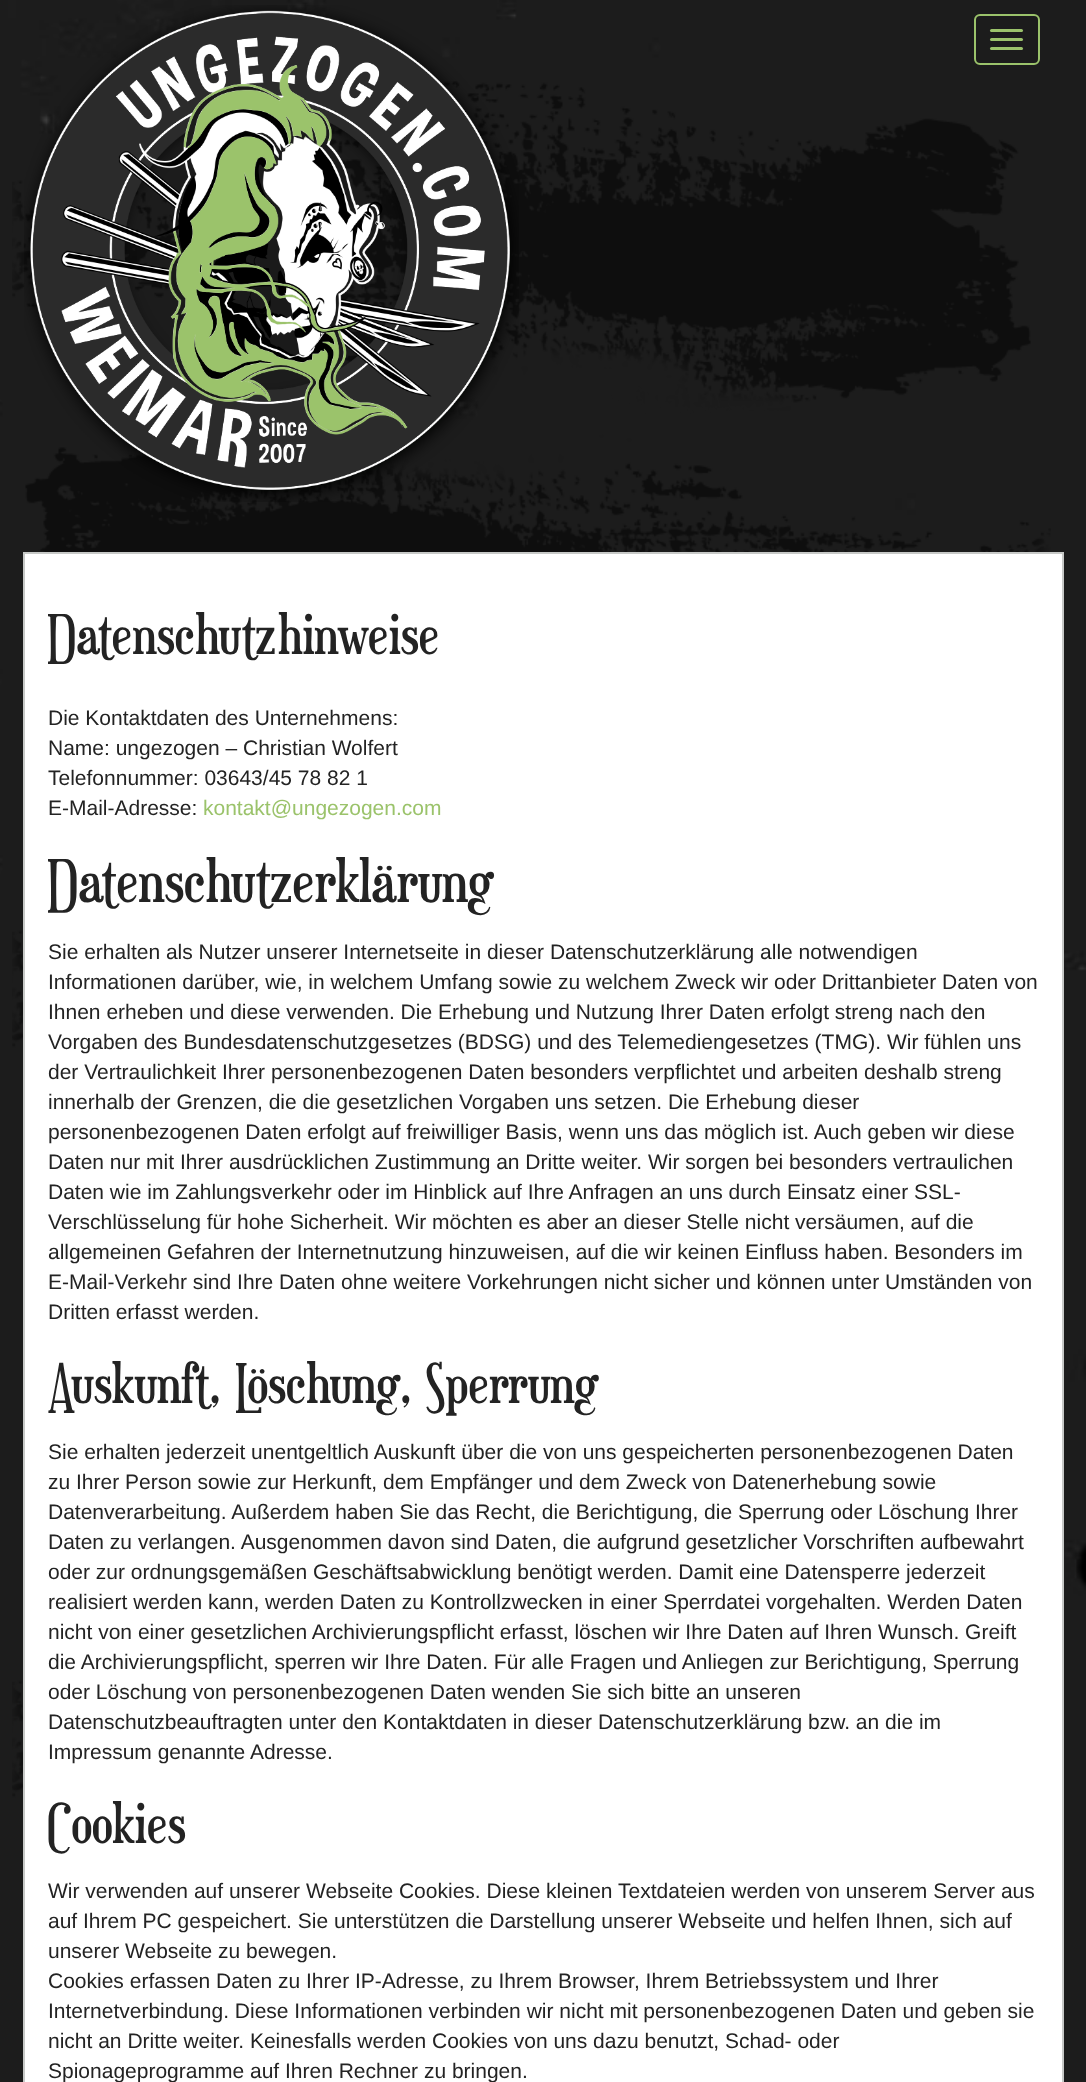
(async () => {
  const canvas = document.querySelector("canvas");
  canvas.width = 1086;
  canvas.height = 2082;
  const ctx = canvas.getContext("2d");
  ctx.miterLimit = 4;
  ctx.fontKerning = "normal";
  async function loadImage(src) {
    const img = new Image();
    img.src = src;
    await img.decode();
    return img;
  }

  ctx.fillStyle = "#ffffff";
  ctx.fillRect(0, 0, 1086, 2082);
  ctx.drawImage(await loadImage("img/1.png"), 0, 0, 1086, 2082);
  ctx.drawImage(await loadImage("img/2.png"), 12, 81, 1039, 1717);
  ctx.drawImage(await loadImage("img/3.png"), 24, 5, 495, 497);
  ctx.beginPath();
  ctx.roundRect(975, 15, 64, 49, 5);
  ctx.strokeStyle = "#9bc36b";
  ctx.lineWidth = 2;
  ctx.stroke();
  ctx.fillStyle = "#9bc36b";
  ctx.beginPath();
  ctx.roundRect(990, 29, 33, 3, 1.5);
  ctx.fill();
  ctx.beginPath();
  ctx.roundRect(990, 38, 33, 3, 1.5);
  ctx.fill();
  ctx.beginPath();
  ctx.roundRect(990, 47, 33, 3, 1.5);
  ctx.fill();
  ctx.fillStyle = "#ffffff";
  ctx.beginPath();
  ctx.rect(24, 553, 1039, 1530);
  ctx.fill();
  ctx.strokeStyle = "#c7c9c7";
  ctx.stroke();
  ctx.font = "58.75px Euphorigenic";
  ctx.fillStyle = "#232323";
  ctx.fillText("Datenschutzhinweise", 48, 654);
  ctx.font = "21px Liberation Sans";
  for (const [text, x, y] of [
    ["Die Kontaktdaten des Unternehmens:", 48, 725],
    ["Name: ungezogen – Christian Wolfert", 48, 755],
    ["Telefonnummer: 03643/45 78 82 1", 48, 785],
    ["E-Mail-Adresse:", 48, 815],
  ]) {
    ctx.fillText(text, x, y);
  }
  ctx.fillStyle = "#9bc36b";
  ctx.fillText("kontakt@ungezogen.com", 203, 815);
  ctx.font = "63px Euphorigenic";
  ctx.fillStyle = "#232323";
  ctx.fillText("Datenschutzerklärung", 48, 902);
  ctx.font = "21px Liberation Sans";
  for (const [text, x, y] of [
    ["Sie erhalten als Nutzer unserer Internetseite in dieser Datenschutzerklärung alle notwendigen", 48, 959],
    ["Informationen darüber, wie, in welchem Umfang sowie zu welchem Zweck wir oder Drittanbieter Daten von", 48, 989],
    ["Ihnen erheben und diese verwenden. Die Erhebung und Nutzung Ihrer Daten erfolgt streng nach den", 48, 1019],
    ["Vorgaben des Bundesdatenschutzgesetzes (BDSG) und des Telemediengesetzes (TMG). Wir fühlen uns", 48, 1049],
    ["der Vertraulichkeit Ihrer personenbezogenen Daten besonders verpflichtet und arbeiten deshalb streng", 48, 1079],
    ["innerhalb der Grenzen, die die gesetzlichen Vorgaben uns setzen. Die Erhebung dieser", 48, 1109],
    ["personenbezogenen Daten erfolgt auf freiwilliger Basis, wenn uns das möglich ist. Auch geben wir diese", 48, 1139],
    ["Daten nur mit Ihrer ausdrücklichen Zustimmung an Dritte weiter. Wir sorgen bei besonders vertraulichen", 48, 1169],
    ["Daten wie im Zahlungsverkehr oder im Hinblick auf Ihre Anfragen an uns durch Einsatz einer SSL-", 48, 1199],
    ["Verschlüsselung für hohe Sicherheit. Wir möchten es aber an dieser Stelle nicht versäumen, auf die", 48, 1229],
    ["allgemeinen Gefahren der Internetnutzung hinzuweisen, auf die wir keinen Einfluss haben. Besonders im", 48, 1259],
    ["E-Mail-Verkehr sind Ihre Daten ohne weitere Vorkehrungen nicht sicher und können unter Umständen von", 48, 1289],
    ["Dritten erfasst werden.", 48, 1319],
  ]) {
    ctx.fillText(text, x, y);
  }
  ctx.font = "58.75px Euphorigenic";
  ctx.fillText("Auskunft, Löschung, Sperrung", 48, 1403);
  ctx.font = "21px Liberation Sans";
  for (const [text, x, y] of [
    ["Sie erhalten jederzeit unentgeltlich Auskunft über die von uns gespeicherten personenbezogenen Daten", 48, 1459],
    ["zu Ihrer Person sowie zur Herkunft, dem Empfänger und dem Zweck von Datenerhebung sowie", 48, 1489],
    ["Datenverarbeitung. Außerdem haben Sie das Recht, die Berichtigung, die Sperrung oder Löschung Ihrer", 48, 1519],
    ["Daten zu verlangen. Ausgenommen davon sind Daten, die aufgrund gesetzlicher Vorschriften aufbewahrt", 48, 1549],
    ["oder zur ordnungsgemäßen Geschäftsabwicklung benötigt werden. Damit eine Datensperre jederzeit", 48, 1579],
    ["realisiert werden kann, werden Daten zu Kontrollzwecken in einer Sperrdatei vorgehalten. Werden Daten", 48, 1609],
    ["nicht von einer gesetzlichen Archivierungspflicht erfasst, löschen wir Ihre Daten auf Ihren Wunsch. Greift", 48, 1639],
    ["die Archivierungspflicht, sperren wir Ihre Daten. Für alle Fragen und Anliegen zur Berichtigung, Sperrung", 48, 1669],
    ["oder Löschung von personenbezogenen Daten wenden Sie sich bitte an unseren", 48, 1699],
    ["Datenschutzbeauftragten unter den Kontaktdaten in dieser Datenschutzerklärung bzw. an die im", 48, 1729],
    ["Impressum genannte Adresse.", 48, 1759],
  ]) {
    ctx.fillText(text, x, y);
  }
  ctx.font = "58.75px Euphorigenic";
  ctx.fillText("Cookies", 48, 1843);
  ctx.font = "21px Liberation Sans";
  for (const [text, x, y] of [
    ["Wir verwenden auf unserer Webseite Cookies. Diese kleinen Textdateien werden von unserem Server aus", 48, 1898],
    ["auf Ihrem PC gespeichert. Sie unterstützen die Darstellung unserer Webseite und helfen Ihnen, sich auf", 48, 1928],
    ["unserer Webseite zu bewegen.", 48, 1958],
    ["Cookies erfassen Daten zu Ihrer IP-Adresse, zu Ihrem Browser, Ihrem Betriebssystem und Ihrer", 48, 1988],
    ["Internetverbindung. Diese Informationen verbinden wir nicht mit personenbezogenen Daten und geben sie", 48, 2018],
    ["nicht an Dritte weiter. Keinesfalls werden Cookies von uns dazu benutzt, Schad- oder", 48, 2048],
    ["Spionageprogramme auf Ihren Rechner zu bringen.", 48, 2078],
  ]) {
    ctx.fillText(text, x, y);
  }
})();
